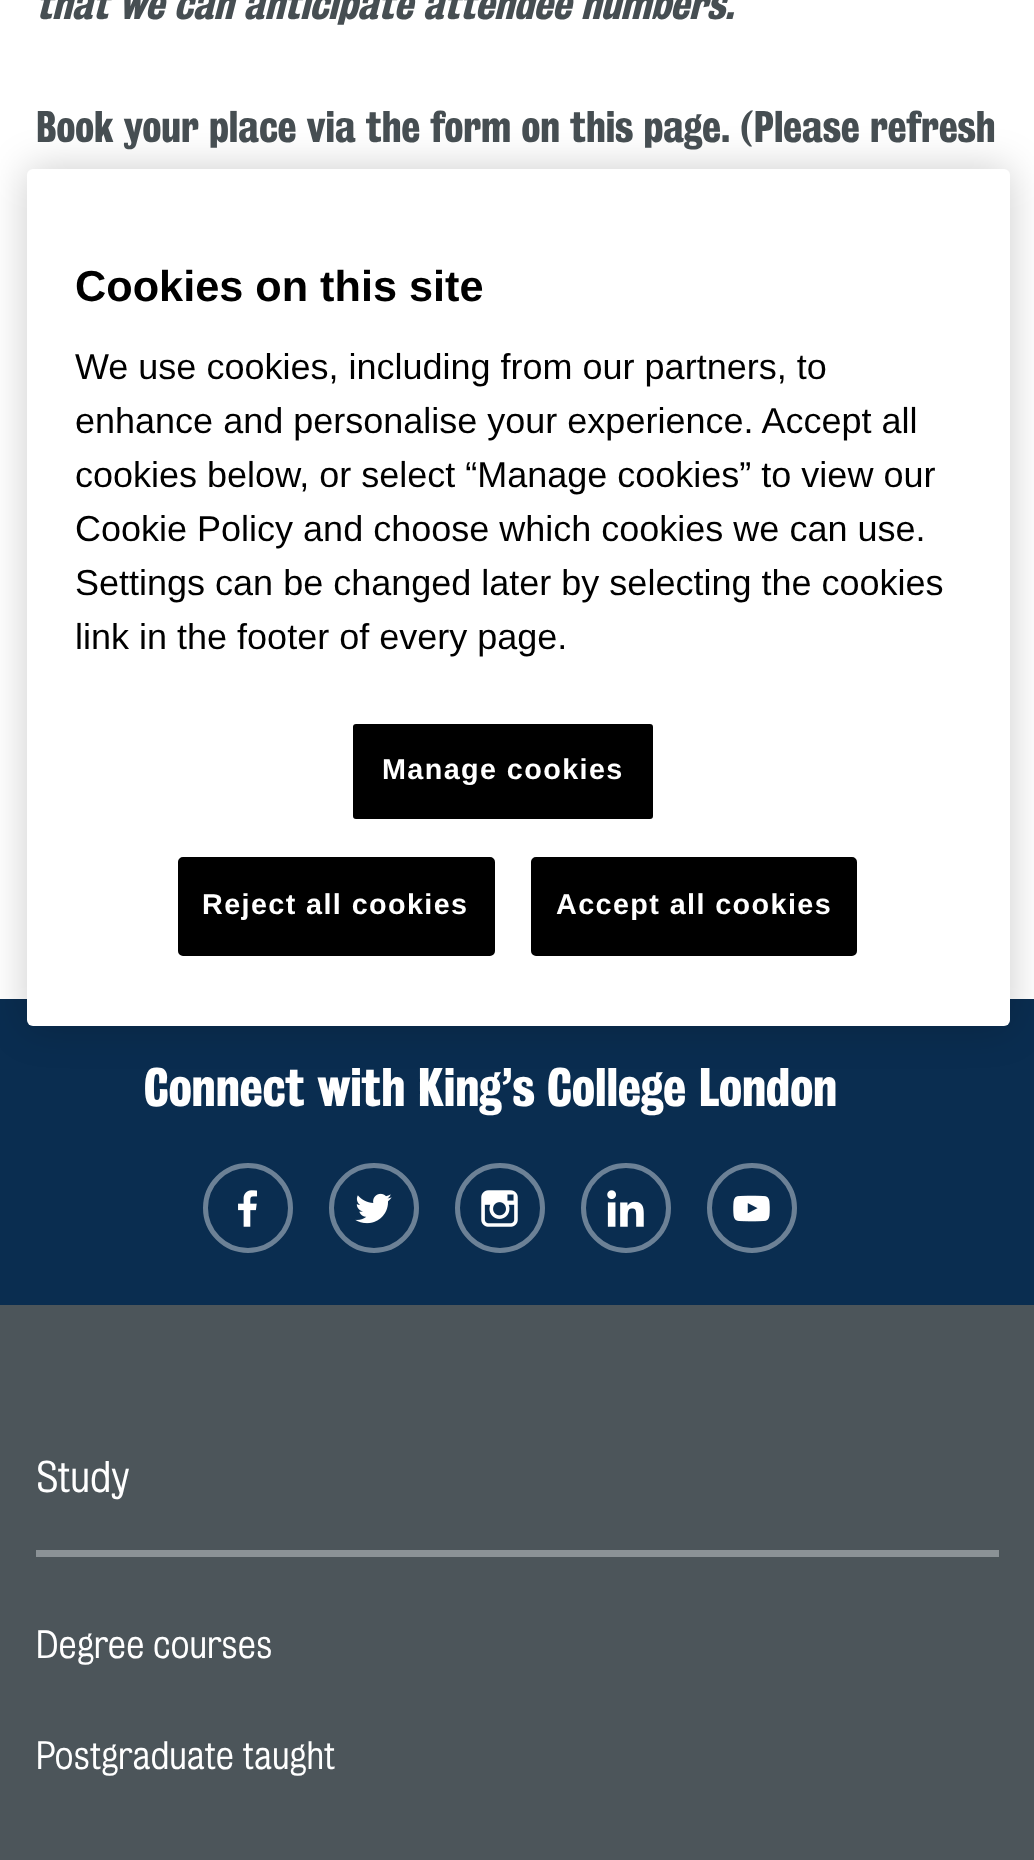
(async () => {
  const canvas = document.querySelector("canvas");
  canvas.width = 1034;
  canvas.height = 1860;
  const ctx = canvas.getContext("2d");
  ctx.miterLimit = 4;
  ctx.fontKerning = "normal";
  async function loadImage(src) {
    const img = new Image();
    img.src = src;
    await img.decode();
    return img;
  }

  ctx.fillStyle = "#ffffff";
  ctx.fillRect(0, 0, 1034, 1860);
  ctx.fillStyle = "#0a2d50";
  ctx.fillRect(0, 999, 1034, 306);
  ctx.beginPath();
  ctx.arc(248, 1208, 42.5, 0, Math.PI * 2);
  ctx.strokeStyle = "#6c8196";
  ctx.lineWidth = 5;
  ctx.stroke();
  ctx.drawImage(await loadImage("img/1.png"), 238, 1190, 19, 37);
  ctx.beginPath();
  ctx.arc(374, 1208, 42.5, 0, Math.PI * 2);
  ctx.stroke();
  ctx.drawImage(await loadImage("img/2.png"), 355, 1193, 37, 31);
  ctx.beginPath();
  ctx.arc(500, 1208, 42.5, 0, Math.PI * 2);
  ctx.stroke();
  ctx.drawImage(await loadImage("img/3.png"), 481, 1190, 37, 37);
  ctx.beginPath();
  ctx.arc(626, 1208, 42.5, 0, Math.PI * 2);
  ctx.stroke();
  ctx.drawImage(await loadImage("img/4.png"), 607, 1190, 37, 37);
  ctx.beginPath();
  ctx.arc(752, 1208, 42.5, 0, Math.PI * 2);
  ctx.stroke();
  ctx.drawImage(await loadImage("img/5.png"), 733, 1195, 37, 27);
  ctx.fillStyle = "#4c555a";
  ctx.fillRect(0, 1305, 1034, 555);
  ctx.fillStyle = "#8b9296";
  ctx.fillRect(36, 1550, 963, 7);
  ctx.fillStyle = "rgba(0, 0, 0, 0.2)";
  ctx.filter = "blur(20px)";
  ctx.beginPath();
  ctx.roundRect(27, 169, 983, 857, 6);
  ctx.fill();
  ctx.filter = "none";
  ctx.fillStyle = "#ffffff";
  ctx.beginPath();
  ctx.roundRect(27, 169, 983, 857, 6);
  ctx.fill();
  ctx.fillStyle = "#000000";
  ctx.beginPath();
  ctx.roundRect(352, 723, 302, 97, 4);
  ctx.fill();
  ctx.strokeStyle = "#ffffff";
  ctx.lineWidth = 2;
  ctx.stroke();
  ctx.beginPath();
  ctx.roundRect(179, 858, 315, 97, 4);
  ctx.fill();
  ctx.strokeStyle = "#000000";
  ctx.stroke();
  ctx.beginPath();
  ctx.roundRect(532, 858, 324, 97, 4);
  ctx.fill();
  ctx.stroke();
  ctx.font = "italic bold 40.5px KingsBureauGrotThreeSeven";
  ctx.fillStyle = "#464e52";
  ctx.fillText("that we can anticipate attendee numbers.", 36, 19);
  ctx.font = "bold 40.5px KingsBureauGrotThreeSeven";
  ctx.fillText("Book your place via the form on this page. (Please refresh", 36, 142);
  ctx.font = "bold 49.5px KingsBureauGrotThreeSeven";
  ctx.fillStyle = "#ffffff";
  ctx.fillText("Connect with King’s College London", 144, 1106);
  ctx.font = "300 40.5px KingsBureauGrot";
  ctx.fillText("Study", 36, 1492);
  ctx.font = "300 36px KingsBureauGrot";
  ctx.fillText("Degree courses", 36, 1658);
  ctx.fillText("Postgraduate taught", 36, 1769);
  ctx.font = "bold 43.25px Liberation Sans";
  ctx.fillStyle = "#000000";
  ctx.fillText("Cookies on this site", 75, 301);
  ctx.font = "36px Liberation Sans";
  for (const [text, x, y] of [
    ["We use cookies, including from our partners, to", 75, 379],
    ["enhance and personalise your experience. Accept all", 75, 433],
    ["cookies below, or select “Manage cookies” to view our", 75, 487],
    ["Cookie Policy and choose which cookies we can use.", 75, 541],
    ["Settings can be changed later by selecting the cookies", 75, 595],
    ["link in the footer of every page.", 75, 649],
  ]) {
    ctx.fillText(text, x, y);
  }
  ctx.letterSpacing = "1.4px";
  ctx.font = "bold 28.75px Liberation Sans";
  ctx.fillStyle = "#ffffff";
  for (const [text, x, y] of [
    ["Manage cookies", 382, 779],
    ["Reject all cookies", 202, 914],
    ["Accept all cookies", 556, 914],
  ]) {
    ctx.fillText(text, x, y);
  }
})();
